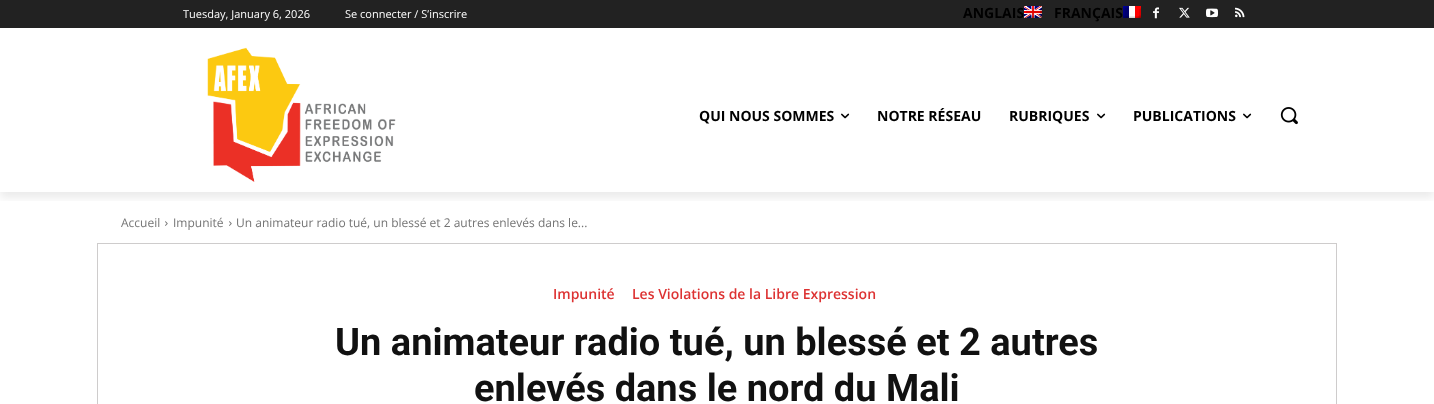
(async () => {
  const canvas = document.querySelector("canvas");
  canvas.width = 1434;
  canvas.height = 404;
  const ctx = canvas.getContext("2d");
  ctx.miterLimit = 4;
  ctx.fontKerning = "normal";
  async function loadImage(src) {
    const img = new Image();
    img.src = src;
    await img.decode();
    return img;
  }

  ctx.fillStyle = "#ffffff";
  ctx.fillRect(0, 0, 1434, 404);
  ctx.fillStyle = "#222222";
  ctx.fillRect(0, 0, 1434, 28);
  ctx.drawImage(await loadImage("img/3.png"), 1153, 7, 6, 12);
  ctx.drawImage(await loadImage("img/4.png"), 1179, 7, 11, 11);
  ctx.drawImage(await loadImage("img/5.png"), 1206, 8, 12, 10);
  ctx.drawImage(await loadImage("img/6.png"), 1235, 7, 10, 11);
  ctx.drawImage(await loadImage("img/7.png"), 207, 47, 189, 135);
  ctx.save();
  ctx.beginPath();
  ctx.rect(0, 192, 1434, 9);
  ctx.clip();
  ctx.fillStyle = "rgba(0, 0, 0, 0.08)";
  ctx.filter = "blur(4px)";
  ctx.beginPath();
  ctx.rect(0, 6, 1434, 192);
  ctx.fill();
  ctx.filter = "none";
  ctx.restore();
  ctx.drawImage(await loadImage("img/1.png"), 1024, 6, 18, 12);
  ctx.drawImage(await loadImage("img/2.png"), 1123, 6, 18, 12);
  ctx.drawImage(await loadImage("img/8.png"), 841, 113, 9, 6);
  ctx.drawImage(await loadImage("img/8.png"), 1097, 113, 9, 6);
  ctx.drawImage(await loadImage("img/8.png"), 1243, 113, 9, 6);
  ctx.drawImage(await loadImage("img/9.png"), 1280, 107, 18, 18);
  ctx.drawImage(await loadImage("img/10.png"), 165, 221, 3, 5);
  ctx.drawImage(await loadImage("img/10.png"), 229, 221, 3, 5);
  ctx.strokeStyle = "#cecccc";
  ctx.strokeRect(97.5, 243.5, 1239, 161);
  ctx.font = "11px Open Sans";
  ctx.fillStyle = "#ffffff";
  ctx.fillText("Tuesday, January 6, 2026", 183, 18);
  ctx.fillText("Se connecter / S’inscrire", 345, 18);
  ctx.font = "bold 14px Open Sans";
  ctx.fillStyle = "#000000";
  for (const [text, x, y] of [
    ["ANGLAIS", 963, 18],
    ["FRANÇAIS", 1054, 18],
    ["QUI NOUS SOMMES", 699, 121],
    ["NOTRE RÉSEAU", 877, 121],
    ["RUBRIQUES", 1009, 121],
    ["PUBLICATIONS", 1133, 121],
  ]) {
    ctx.fillText(text, x, y);
  }
  ctx.font = "12px Open Sans";
  ctx.fillStyle = "#747474";
  for (const [text, x, y] of [
    ["Accueil", 121, 227],
    ["Impunité", 173, 227],
    ["Un animateur radio tué, un blessé et 2 autres enlevés dans le...", 236, 227],
  ]) {
    ctx.fillText(text, x, y);
  }
  ctx.font = "600 14px Open Sans";
  ctx.fillStyle = "#dd3333";
  ctx.fillText("Impunité", 553, 299);
  ctx.fillText("Les Violations de la Libre Expression", 632, 299);
  ctx.font = "bold 38px Roboto";
  ctx.fillStyle = "#111111";
  ctx.fillText("Un animateur radio tué, un blessé et 2 autres", 335, 355);
  ctx.fillText("enlevés dans le nord du Mali", 474, 401);
})();
